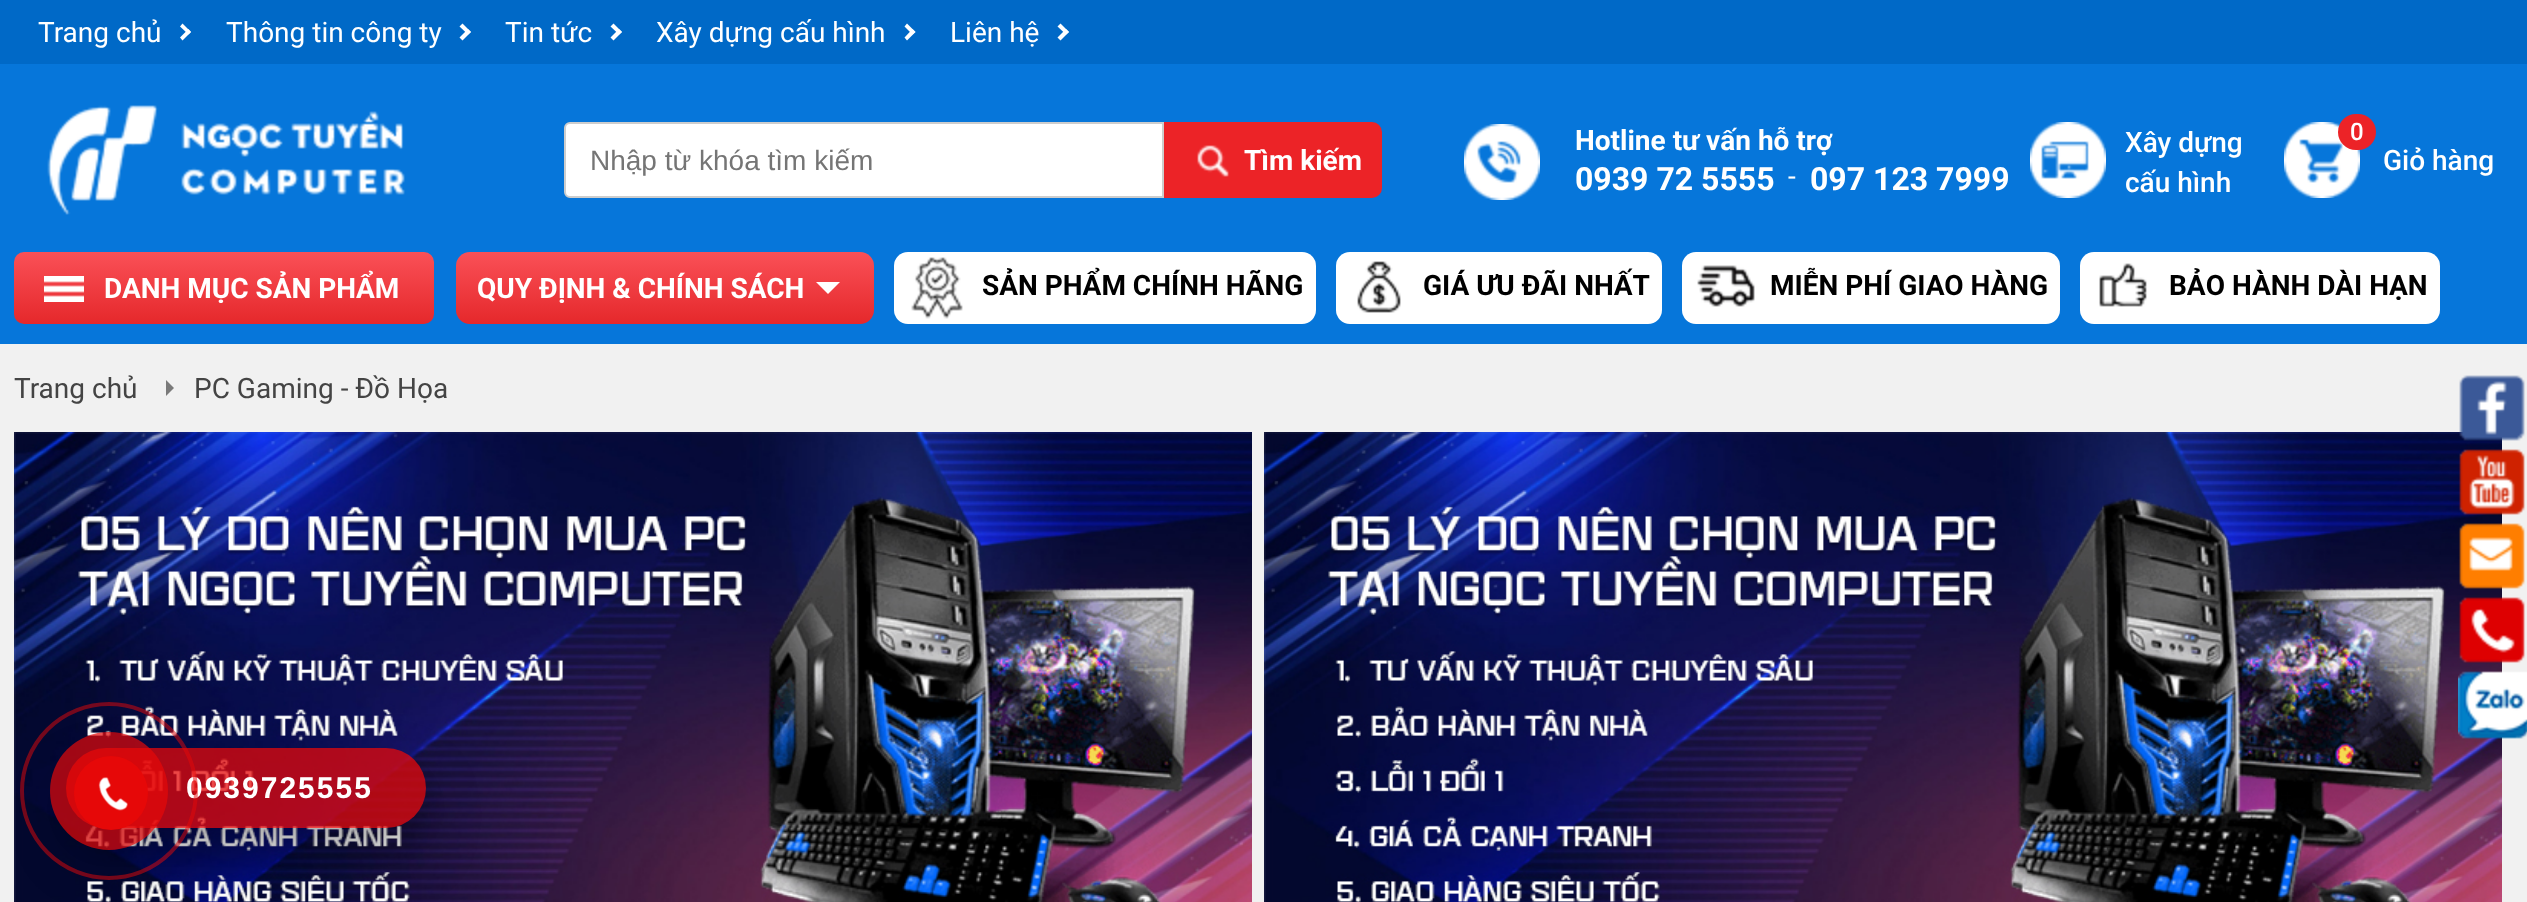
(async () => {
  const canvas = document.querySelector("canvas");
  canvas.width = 2527;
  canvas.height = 902;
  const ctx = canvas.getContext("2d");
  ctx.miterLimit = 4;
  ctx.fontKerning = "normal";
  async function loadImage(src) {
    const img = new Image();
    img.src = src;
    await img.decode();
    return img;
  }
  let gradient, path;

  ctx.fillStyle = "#f1f1f1";
  ctx.fillRect(0, 0, 2527, 902);
  ctx.fillStyle = "#0069c7";
  ctx.fillRect(0, 0, 2527, 64);
  ctx.fillStyle = "#ffffff";
  path = new Path2D("M180 26.5L182.5 23.5L191 32L188.5 34.5Z");
  ctx.fill(path);
  path = new Path2D("M180 37.5L188.5 29L191 32L182.5 40.5Z");
  ctx.fill(path);
  path = new Path2D("M459.5 26.5L462.5 23.5L471 32L468 34.5Z");
  ctx.fill(path);
  path = new Path2D("M459.5 37.5L468 29L471 32L462.5 40.5Z");
  ctx.fill(path);
  path = new Path2D("M610.5 26.5L613.5 23.5L622 32L619 34.5Z");
  ctx.fill(path);
  path = new Path2D("M610.5 37.5L619 29L622 32L613.5 40.5Z");
  ctx.fill(path);
  path = new Path2D("M904.5 26.5L907 23.5L915.5 32L912.5 34.5Z");
  ctx.fill(path);
  path = new Path2D("M904.5 37.5L912.5 29L915.5 32L907 40.5Z");
  ctx.fill(path);
  path = new Path2D("M1057.5 26.5L1060.5 23.5L1069 32L1066 34.5Z");
  ctx.fill(path);
  path = new Path2D("M1057.5 37.5L1066 29L1069 32L1060.5 40.5Z");
  ctx.fill(path);
  ctx.fillStyle = "#0676da";
  ctx.fillRect(0, 64, 2527, 280);
  ctx.drawImage(await loadImage("img/1.png"), 47, 105, 358, 110);
  ctx.fillStyle = "#ffffff";
  ctx.beginPath();
  ctx.roundRect(565, 123, 598, 74, [5, 0, 0, 5]);
  ctx.fill();
  ctx.strokeStyle = "#cdcdcd";
  ctx.lineWidth = 2;
  ctx.stroke();
  ctx.fillStyle = "#ec2327";
  ctx.beginPath();
  ctx.roundRect(1164, 122, 218, 76, [0, 10, 10, 0]);
  ctx.fill();
  ctx.drawImage(await loadImage("img/2.png"), 1197, 145, 32, 32);
  ctx.drawImage(await loadImage("img/3.png"), 1464, 124, 76, 76);
  ctx.drawImage(await loadImage("img/4.png"), 2030, 122, 76, 76);
  ctx.drawImage(await loadImage("img/5.png"), 2284, 122, 76, 76);
  ctx.beginPath();
  ctx.roundRect(2338, 114, 38, 36, 18);
  ctx.fill();
  gradient = ctx.createLinearGradient(224, 324, 224, 252);
  gradient.addColorStop(0, "#e5282b");
  gradient.addColorStop(1, "#fa5057");
  ctx.fillStyle = gradient;
  ctx.beginPath();
  ctx.roundRect(14, 252, 420, 72, 10);
  ctx.fill();
  ctx.drawImage(await loadImage("img/6.png"), 44, 276, 40, 26);
  gradient = ctx.createLinearGradient(665, 324, 665, 252);
  gradient.addColorStop(0, "#e5282b");
  gradient.addColorStop(1, "#fa5057");
  ctx.fillStyle = gradient;
  ctx.beginPath();
  ctx.roundRect(456, 252, 418, 72, 14);
  ctx.fill();
  ctx.fillStyle = "#ffffff";
  path = new Path2D("M816 282H840L828 294Z");
  ctx.fill(path);
  ctx.beginPath();
  ctx.roundRect(894, 252, 422, 72, 14);
  ctx.fill();
  ctx.drawImage(await loadImage("img/7.png"), 911, 257, 52, 62);
  ctx.beginPath();
  ctx.roundRect(1336, 252, 326, 72, 14);
  ctx.fill();
  ctx.drawImage(await loadImage("img/8.png"), 1357, 261, 44, 52);
  ctx.beginPath();
  ctx.roundRect(1682, 252, 378, 72, 14);
  ctx.fill();
  ctx.drawImage(await loadImage("img/9.png"), 1697, 265, 58, 42);
  ctx.beginPath();
  ctx.roundRect(2080, 252, 360, 72, 14);
  ctx.fill();
  ctx.drawImage(await loadImage("img/10.png"), 2099, 263, 48, 44);
  ctx.fillStyle = "#7a7a7a";
  path = new Path2D("M166 396V380L174 388Z");
  ctx.fill(path);
  ctx.drawImage(await loadImage("img/11.png"), 14, 432, 1238, 470);
  ctx.drawImage(await loadImage("img/11.png"), 1264, 432, 1238, 470);
  ctx.drawImage(await loadImage("img/12.png"), 2459, 375, 66, 66);
  ctx.drawImage(await loadImage("img/13.png"), 2459, 449, 66, 66);
  ctx.drawImage(await loadImage("img/14.png"), 2459, 523, 66, 66);
  ctx.drawImage(await loadImage("img/15.png"), 2459, 597, 66, 66);
  ctx.drawImage(await loadImage("img/16.png"), 2458, 671, 69, 68);
  ctx.save();
  path = new Path2D("M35 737H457V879H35ZM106 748H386C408 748 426 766 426 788C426 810 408 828 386 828H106C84 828 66 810 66 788C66 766 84 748 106 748Z");
  ctx.clip(path, "evenodd");
  ctx.fillStyle = "rgba(0, 0, 0, 0.1)";
  ctx.filter = "blur(10px)";
  ctx.beginPath();
  ctx.roundRect(66, 768, 360, 80, 40);
  ctx.fill();
  ctx.filter = "none";
  ctx.restore();
  ctx.save();
  path = new Path2D("M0 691H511V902H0ZM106 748H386C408 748 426 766 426 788C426 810 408 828 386 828H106C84 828 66 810 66 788C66 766 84 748 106 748Z");
  ctx.clip(path, "evenodd");
  ctx.fillStyle = "rgba(0, 0, 0, 0.25)";
  ctx.filter = "blur(28px)";
  ctx.beginPath();
  ctx.roundRect(66, 776, 360, 80, 40);
  ctx.fill();
  ctx.filter = "none";
  ctx.restore();
  ctx.fillStyle = "rgba(230, 8, 8, 0.75)";
  ctx.beginPath();
  ctx.roundRect(66, 748, 360, 80, 40);
  ctx.fill();
  ctx.font = "28px Roboto";
  ctx.fillStyle = "#ffffff";
  for (const [text, x, y] of [
    ["Trang chủ", 38, 42],
    ["Thông tin công ty", 226, 42],
    ["Tin tức", 505, 42],
    ["Xây dựng cấu hình", 656, 42],
    ["Liên hệ", 950, 42],
  ]) {
    ctx.fillText(text, x, y);
  }
  ctx.font = "28px Liberation Sans";
  ctx.fillStyle = "#757575";
  ctx.fillText("Nhập từ khóa tìm kiếm", 590, 170);
  ctx.font = "bold 28px Roboto";
  ctx.fillStyle = "#ffffff";
  ctx.fillText("Tìm kiếm", 1244, 170);
  ctx.fillText("Hotline tư vấn hỗ trợ", 1575, 150);
  ctx.font = "bold 32px Roboto";
  ctx.fillText("0939 72 5555", 1575, 190);
  ctx.font = "28px Roboto";
  ctx.fillText("-", 1788, 186);
  ctx.font = "bold 32px Roboto";
  ctx.fillText("097 123 7999", 1810, 190);
  ctx.font = "500 28px Roboto";
  ctx.fillText("Xây dựng", 2125, 152);
  ctx.fillText("cấu hình", 2125, 192);
  ctx.font = "500 24px Roboto";
  ctx.fillText("0", 2350, 140);
  ctx.font = "500 28px Roboto";
  ctx.fillText("Giỏ hàng", 2383, 170);
  ctx.font = "bold 28px Roboto";
  ctx.fillText("DANH MỤC SẢN PHẨM", 104, 298);
  ctx.fillText("QUY ĐỊNH & CHÍNH SÁCH", 477, 298);
  ctx.fillStyle = "#000000";
  for (const [text, x, y] of [
    ["SẢN PHẨM CHÍNH HÃNG", 982, 295],
    ["GIÁ ƯU ĐÃI NHẤT", 1423, 295],
    ["MIỄN PHÍ GIAO HÀNG", 1770, 295],
    ["BẢO HÀNH DÀI HẠN", 2169, 295],
  ]) {
    ctx.fillText(text, x, y);
  }
  ctx.font = "28px Roboto";
  ctx.fillStyle = "#444444";
  ctx.fillText("Trang chủ", 14, 398);
  ctx.fillText("PC Gaming - Đồ Họa", 194, 398);
  ctx.letterSpacing = "2px";
  ctx.font = "bold 30px Liberation Sans";
  ctx.fillStyle = "#ffffff";
  ctx.fillText("0939725555", 186, 798);
  ctx.beginPath();
  ctx.arc(109, 791, 87, 0, Math.PI * 2);
  ctx.strokeStyle = "rgba(230, 8, 8, 0.5)";
  ctx.lineWidth = 4;
  ctx.stroke();
  ctx.fillStyle = "rgba(230, 8, 8, 0.7)";
  ctx.beginPath();
  ctx.arc(109, 791, 59, 0, Math.PI * 2);
  ctx.fill();
  ctx.fillStyle = "#e60808";
  ctx.beginPath();
  ctx.arc(111, 793, 37, 0, Math.PI * 2);
  ctx.fill();
  ctx.drawImage(await loadImage("img/17.png"), 98, 777, 30, 34);
})();
